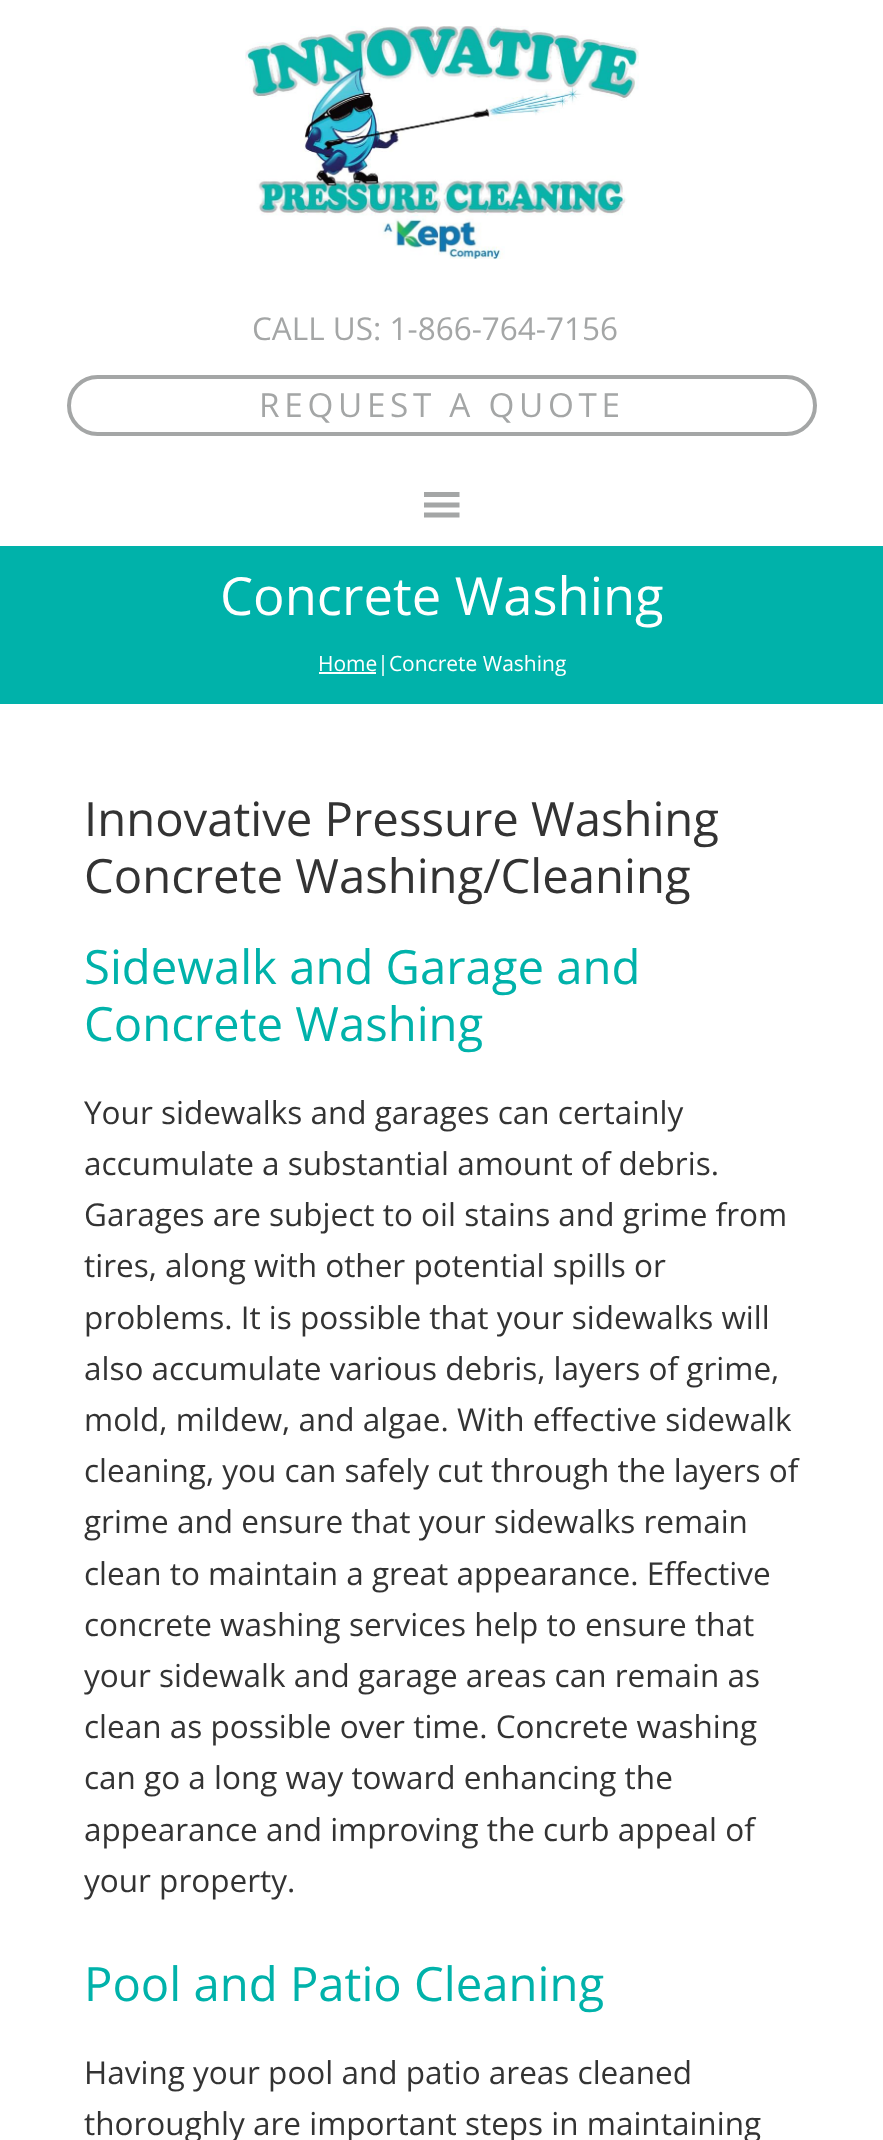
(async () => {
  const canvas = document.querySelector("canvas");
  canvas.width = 883;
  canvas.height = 2140;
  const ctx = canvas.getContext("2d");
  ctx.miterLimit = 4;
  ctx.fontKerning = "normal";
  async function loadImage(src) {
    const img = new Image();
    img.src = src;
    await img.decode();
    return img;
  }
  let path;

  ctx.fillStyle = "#ffffff";
  ctx.fillRect(0, 0, 883, 2140);
  ctx.drawImage(await loadImage("img/1.png"), 245, 26, 394, 233);
  ctx.beginPath();
  ctx.roundRect(69, 377, 746, 57, 28.5);
  ctx.strokeStyle = "#a4a6a6";
  ctx.lineWidth = 4;
  ctx.stroke();
  ctx.fillStyle = "#a4a6a6";
  path = new Path2D("M424 517.5H459.5V512.5H424ZM424 492V497H459.5V492ZM424 507.5H459.5V502.5H424Z");
  ctx.fill(path);
  ctx.fillStyle = "#00b2aa";
  ctx.fillRect(0, 546, 883, 158);
  ctx.fillStyle = "#ffffff";
  ctx.fillRect(319, 672, 57, 2);
  ctx.font = "31.5px Open Sans";
  ctx.fillStyle = "#a4a6a6";
  ctx.fillText("CALL US: 1-866-764-7156", 252, 340);
  ctx.letterSpacing = "4.7px";
  ctx.font = "33.25px 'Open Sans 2'";
  ctx.fillText("REQUEST A QUOTE", 259, 417);
  ctx.letterSpacing = "0px";
  ctx.font = "52.5px Open Sans";
  ctx.fillStyle = "#ffffff";
  ctx.fillText("Concrete Washing", 220, 615);
  ctx.font = "21px Open Sans";
  ctx.fillText("Home|Concrete Washing", 318, 671);
  ctx.font = "47.25px Open Sans";
  ctx.fillStyle = "#333333";
  ctx.fillText("Innovative Pressure Washing", 84, 836);
  ctx.fillText("Concrete Washing/Cleaning", 84, 893);
  ctx.fillStyle = "#00b2aa";
  ctx.fillText("Sidewalk and Garage and", 84, 984);
  ctx.fillText("Concrete Washing", 84, 1041);
  ctx.font = "31.5px Open Sans";
  ctx.fillStyle = "#333333";
  for (const [text, x, y] of [
    ["Your sidewalks and garages can certainly", 84, 1124],
    ["accumulate a substantial amount of debris.", 84, 1175],
    ["Garages are subject to oil stains and grime from", 84, 1226],
    ["tires, along with other potential spills or", 84, 1277],
    ["problems. It is possible that your sidewalks will", 84, 1329],
    ["also accumulate various debris, layers of grime,", 84, 1380],
    ["mold, mildew, and algae. With effective sidewalk", 84, 1431],
    ["cleaning, you can safely cut through the layers of", 84, 1482],
    ["grime and ensure that your sidewalks remain", 84, 1533],
    ["clean to maintain a great appearance. Effective", 84, 1585],
    ["concrete washing services help to ensure that", 84, 1636],
    ["your sidewalk and garage areas can remain as", 84, 1687],
    ["clean as possible over time. Concrete washing", 84, 1738],
    ["can go a long way toward enhancing the", 84, 1789],
    ["appearance and improving the curb appeal of", 84, 1841],
    ["your property.", 84, 1892],
  ]) {
    ctx.fillText(text, x, y);
  }
  ctx.font = "47.25px Open Sans";
  ctx.fillStyle = "#00b2aa";
  ctx.fillText("Pool and Patio Cleaning", 84, 2001);
  ctx.font = "31.5px Open Sans";
  ctx.fillStyle = "#333333";
  ctx.fillText("Having your pool and patio areas cleaned", 84, 2084);
  ctx.fillText("thoroughly are important steps in maintaining", 84, 2135);
})();
